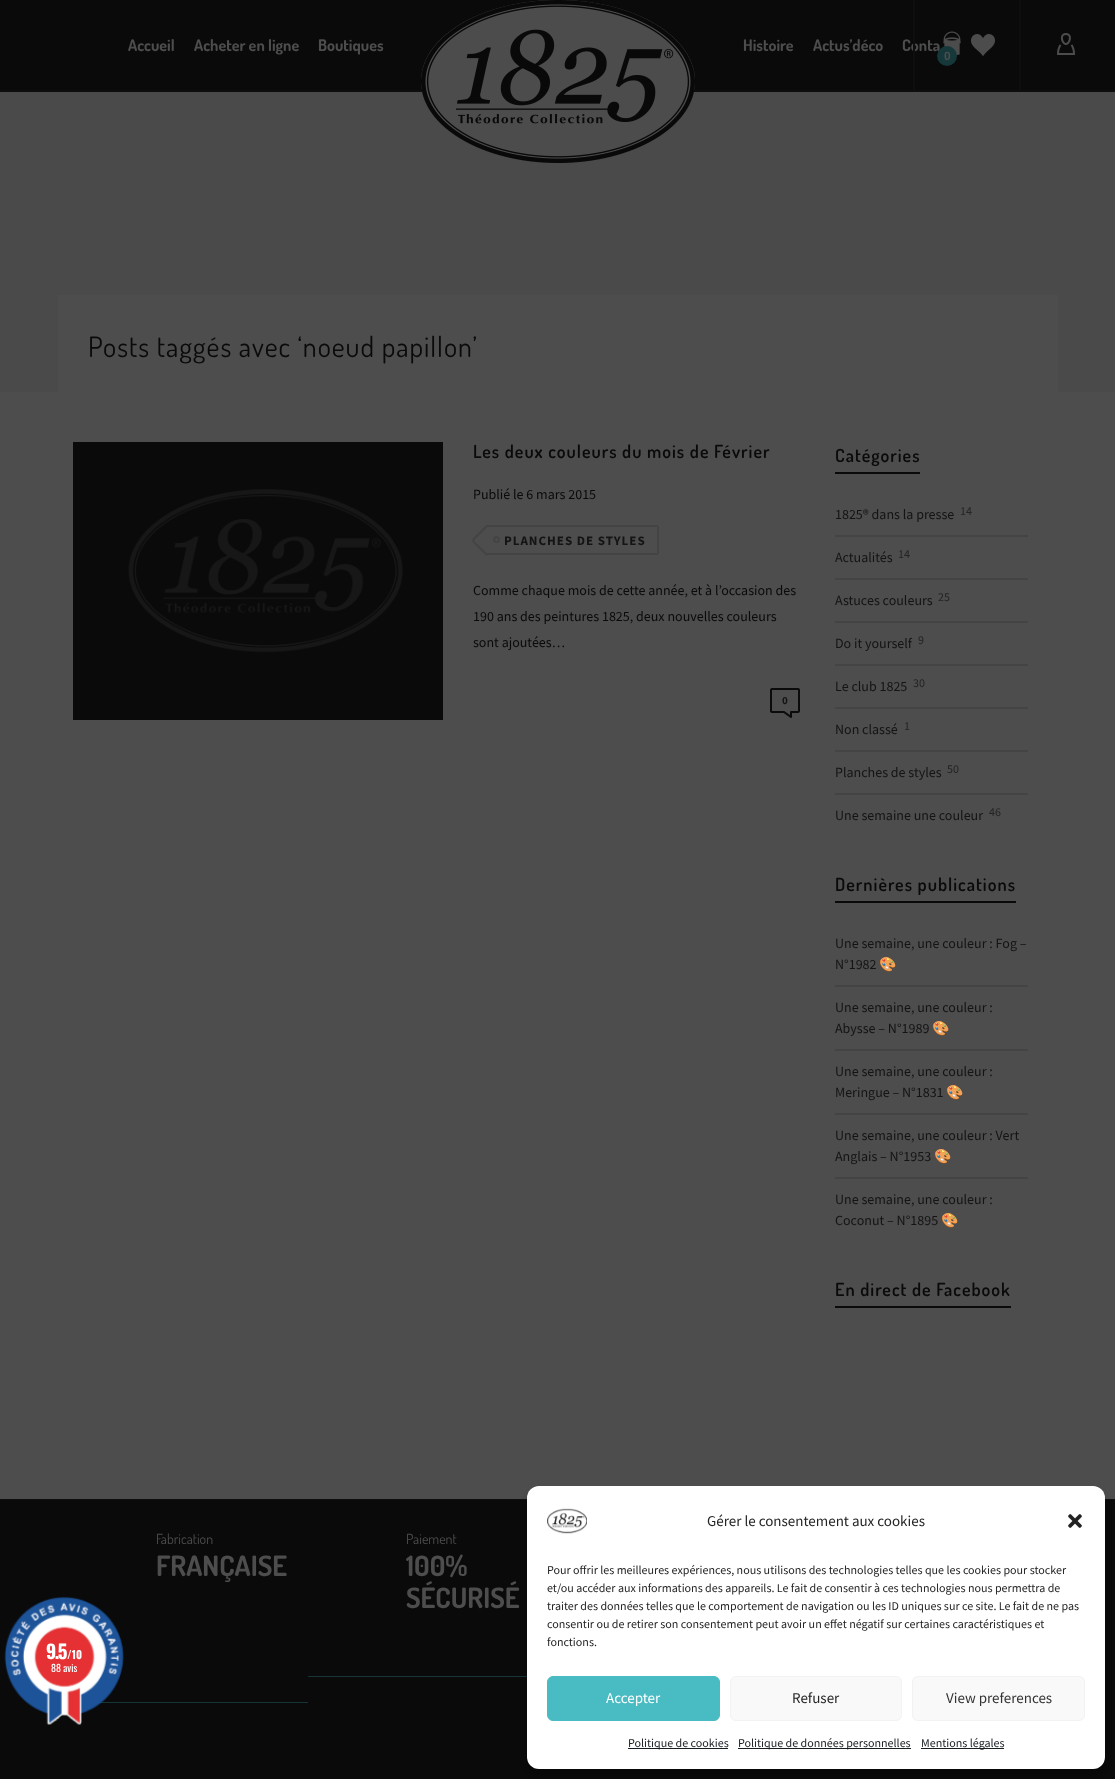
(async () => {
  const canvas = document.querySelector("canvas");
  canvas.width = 1115;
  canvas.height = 1779;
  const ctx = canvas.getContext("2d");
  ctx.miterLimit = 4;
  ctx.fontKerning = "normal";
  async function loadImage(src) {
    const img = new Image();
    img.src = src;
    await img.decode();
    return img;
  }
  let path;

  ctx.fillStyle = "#0a0a0a";
  ctx.fillRect(0, 0, 1115, 1779);
  ctx.fillStyle = "#0f0e0e";
  ctx.fillRect(0, 90, 1115, 2);
  ctx.fillStyle = "#4a4a4a";
  ctx.fillRect(0, 92, 1115, 300);
  ctx.drawImage(await loadImage("img/1.png"), 421, 0, 274, 163);
  ctx.drawImage(await loadImage("img/2.png"), 943, 31, 18, 25);
  ctx.drawImage(await loadImage("img/3.png"), 971, 34, 24, 22);
  ctx.fillStyle = "#0f0e0e";
  ctx.fillRect(1019, 0, 2, 90);
  ctx.drawImage(await loadImage("img/4.png"), 1057, 33, 18, 22);
  ctx.fillStyle = "#4d4d4d";
  ctx.fillRect(0, 392, 1115, 1107);
  ctx.fillRect(58, 295, 1000, 97);
  ctx.drawImage(await loadImage("img/5.png"), 73, 442, 370, 278);
  for (const [x, y, w, h, color] of [
    [487, 525, 171, 2, "#444444"],
    [657, 526, 2, 28, "#444444"],
    [487, 553, 171, 2, "#444444"],
  ]) {
    ctx.fillStyle = color;
    ctx.fillRect(x, y, w, h);
  }
  path = new Path2D("M486.5 525L502 540.5L486.5 556L473 542.5C472 541.5 472 539.5 473 538ZM488 526.5L502 540.5L488 554.5L474.5 541.5C474 541 474 540 474.5 539.5Z");
  ctx.fill(path, "evenodd");
  ctx.beginPath();
  ctx.arc(496.5, 539.5, 2.5, 0, Math.PI * 2);
  ctx.strokeStyle = "#444444";
  ctx.lineWidth = 2;
  ctx.stroke();
  ctx.drawImage(await loadImage("img/6.png"), 770, 688, 30, 30);
  for (const [x, y, w, h, color] of [
    [835, 472, 85, 2, "#0a0a0a"],
    [835, 535, 193, 2, "#444444"],
    [835, 578, 193, 2, "#444444"],
    [835, 621, 193, 2, "#444444"],
    [835, 664, 193, 2, "#444444"],
    [835, 707, 193, 2, "#444444"],
    [835, 750, 193, 2, "#444444"],
    [835, 793, 193, 2, "#444444"],
    [835, 901, 181, 2, "#0a0a0a"],
    [835, 985, 193, 2, "#444444"],
    [835, 1049, 193, 2, "#444444"],
    [835, 1113, 193, 2, "#444444"],
    [835, 1177, 193, 2, "#444444"],
    [835, 1306, 176, 2, "#0a0a0a"],
    [0, 1499, 1115, 1, "#0f0f0f"],
    [98, 1702, 210, 1, "#153536"],
    [308, 1676, 219, 1, "#153536"],
  ]) {
    ctx.fillStyle = color;
    ctx.fillRect(x, y, w, h);
  }
  ctx.drawImage(await loadImage("img/7.png"), 4, 1597, 120, 128);
  ctx.fillStyle = "rgba(0, 0, 0, 0.23)";
  ctx.filter = "blur(3px)";
  ctx.beginPath();
  ctx.roundRect(527, 1492, 578, 283, 12);
  ctx.fill();
  ctx.filter = "none";
  ctx.fillStyle = "#ffffff";
  ctx.beginPath();
  ctx.roundRect(527, 1486, 578, 283, 12);
  ctx.fill();
  ctx.drawImage(await loadImage("img/8.png"), 547, 1508, 40, 26);
  ctx.drawImage(await loadImage("img/9.png"), 1068, 1514, 14, 14);
  ctx.fillStyle = "#49bbc2";
  ctx.beginPath();
  ctx.roundRect(547.5, 1676.5, 172, 44, 5.5);
  ctx.fill();
  ctx.strokeStyle = "#49bbc2";
  ctx.lineWidth = 1;
  ctx.stroke();
  ctx.fillStyle = "#f9f9f9";
  ctx.beginPath();
  ctx.roundRect(730.5, 1676.5, 171, 44, 5.5);
  ctx.fill();
  ctx.strokeStyle = "#f2f2f2";
  ctx.stroke();
  ctx.beginPath();
  ctx.roundRect(912.5, 1676.5, 172, 44, 5.5);
  ctx.fill();
  ctx.stroke();
  for (const [x, y, w, h, color] of [
    [628, 1748, 100, 1, "#191e23"],
    [738, 1748, 173, 1, "#191e23"],
    [921, 1748, 83, 1, "#191e23"],
  ]) {
    ctx.fillStyle = color;
    ctx.fillRect(x, y, w, h);
  }
  ctx.font = "bold 16px Dosis";
  ctx.fillStyle = "#4d4d4d";
  for (const [text, x, y] of [
    ["Accueil", 128, 51],
    ["Acheter en ligne", 194, 51],
    ["Boutiques", 318, 51],
    ["Histoire", 743, 51],
    ["Actus’déco", 813, 51],
    ["Conta", 902, 51],
  ]) {
    ctx.fillText(text, x, y);
  }
  ctx.fillStyle = "#0f0e0e";
  ctx.fillRect(913, 0, 2, 90);
  ctx.fillStyle = "#16383a";
  ctx.beginPath();
  ctx.arc(947, 56, 10, 0, Math.PI * 2);
  ctx.fill();
  ctx.font = "bold 12px Liberation Sans";
  ctx.fillStyle = "#4d4d4d";
  ctx.fillText("0", 944, 60);
  ctx.letterSpacing = "1px";
  ctx.font = "28px Dosis";
  ctx.fillStyle = "#0a0a0a";
  ctx.fillText("Posts taggés avec ‘noeud papillon’", 88, 357);
  ctx.font = "600 18px Dosis";
  ctx.fillText("Les deux couleurs du mois de Février", 473, 458);
  ctx.letterSpacing = "0px";
  ctx.font = "14px Source Sans Pro";
  ctx.fillText("Publié le 6 mars 2015", 473, 499);
  ctx.letterSpacing = "1px";
  ctx.font = "bold 13px Source Sans Pro";
  ctx.fillStyle = "#141414";
  ctx.fillText("PLANCHES DE STYLES", 504, 545);
  ctx.letterSpacing = "0px";
  ctx.font = "14px Source Sans Pro";
  ctx.fillStyle = "#0a0a0a";
  for (const [text, x, y] of [
    ["Comme chaque mois de cette année, et à l’occasion des", 473, 595],
    ["190 ans des peintures 1825, deux nouvelles couleurs", 473, 621],
    ["sont ajoutées…", 473, 647],
  ]) {
    ctx.fillText(text, x, y);
  }
  ctx.font = "bold 11px Source Sans Pro";
  ctx.fillStyle = "#141414";
  ctx.fillText("0", 782, 704);
  ctx.letterSpacing = "1px";
  ctx.font = "600 18px Dosis";
  ctx.fillStyle = "#0a0a0a";
  ctx.fillText("Catégories", 835, 462);
  ctx.letterSpacing = "0px";
  ctx.font = "14px Source Sans Pro";
  ctx.fillStyle = "#141414";
  ctx.fillText("1825® dans la presse", 835, 519);
  ctx.font = "12px Source Sans Pro";
  ctx.fillStyle = "#242424";
  ctx.fillText("14", 960, 515);
  ctx.font = "14px Source Sans Pro";
  ctx.fillStyle = "#141414";
  ctx.fillText("Actualités", 835, 562);
  ctx.font = "12px Source Sans Pro";
  ctx.fillStyle = "#242424";
  ctx.fillText("14", 898, 558);
  ctx.font = "14px Source Sans Pro";
  ctx.fillStyle = "#141414";
  ctx.fillText("Astuces couleurs", 835, 605);
  ctx.font = "12px Source Sans Pro";
  ctx.fillStyle = "#242424";
  ctx.fillText("25", 938, 601);
  ctx.font = "14px Source Sans Pro";
  ctx.fillStyle = "#141414";
  ctx.fillText("Do it yourself", 835, 648);
  ctx.font = "12px Source Sans Pro";
  ctx.fillStyle = "#242424";
  ctx.fillText("9", 918, 644);
  ctx.font = "14px Source Sans Pro";
  ctx.fillStyle = "#141414";
  ctx.fillText("Le club 1825", 835, 691);
  ctx.font = "12px Source Sans Pro";
  ctx.fillStyle = "#242424";
  ctx.fillText("30", 913, 687);
  ctx.font = "14px Source Sans Pro";
  ctx.fillStyle = "#141414";
  ctx.fillText("Non classé", 835, 734);
  ctx.font = "12px Source Sans Pro";
  ctx.fillStyle = "#242424";
  ctx.fillText("1", 904, 730);
  ctx.font = "14px Source Sans Pro";
  ctx.fillStyle = "#141414";
  ctx.fillText("Planches de styles", 835, 777);
  ctx.font = "12px Source Sans Pro";
  ctx.fillStyle = "#242424";
  ctx.fillText("50", 947, 773);
  ctx.font = "14px Source Sans Pro";
  ctx.fillStyle = "#141414";
  ctx.fillText("Une semaine une couleur", 835, 820);
  ctx.font = "12px Source Sans Pro";
  ctx.fillStyle = "#242424";
  ctx.fillText("46", 989, 816);
  ctx.letterSpacing = "1px";
  ctx.font = "600 18px Dosis";
  ctx.fillStyle = "#0a0a0a";
  ctx.fillText("Dernières publications", 835, 891);
  ctx.letterSpacing = "0px";
  ctx.font = "14px Source Sans Pro";
  ctx.fillStyle = "#141414";
  ctx.fillText("Une semaine, une couleur : Fog –", 835, 948);
  ctx.fillText("N°1982", 835, 969);
  ctx.font = "14px Noto Color Emoji";
  ctx.fillText("🎨", 879, 969);
  ctx.font = "14px Source Sans Pro";
  ctx.fillText("Une semaine, une couleur :", 835, 1012);
  ctx.fillText("Abysse – N°1989", 835, 1033);
  ctx.font = "14px Noto Color Emoji";
  ctx.fillText("🎨", 932, 1033);
  ctx.font = "14px Source Sans Pro";
  ctx.fillText("Une semaine, une couleur :", 835, 1076);
  ctx.fillText("Meringue – N°1831", 835, 1097);
  ctx.font = "14px Noto Color Emoji";
  ctx.fillText("🎨", 946, 1097);
  ctx.font = "14px Source Sans Pro";
  ctx.fillText("Une semaine, une couleur : Vert", 835, 1140);
  ctx.fillText("Anglais – N°1953", 835, 1161);
  ctx.font = "14px Noto Color Emoji";
  ctx.fillText("🎨", 934, 1161);
  ctx.font = "14px Source Sans Pro";
  ctx.fillText("Une semaine, une couleur :", 835, 1204);
  ctx.fillText("Coconut – N°1895", 835, 1225);
  ctx.font = "14px Noto Color Emoji";
  ctx.fillText("🎨", 941, 1225);
  ctx.letterSpacing = "1px";
  ctx.font = "600 18px Dosis";
  ctx.fillStyle = "#0a0a0a";
  ctx.fillText("En direct de Facebook", 835, 1296);
  ctx.letterSpacing = "0px";
  ctx.font = "14px Dosis";
  ctx.fillStyle = "#4d4d4d";
  ctx.fillText("Fabrication", 156, 1544);
  ctx.font = "bold 28px Dosis";
  ctx.fillText("FRANÇAISE", 156, 1576);
  ctx.font = "14px Dosis";
  ctx.fillText("Paiement", 406, 1544);
  ctx.font = "bold 28px Dosis";
  ctx.fillText("100%", 406, 1576);
  ctx.fillText("SÉCURISÉ", 406, 1608);
  ctx.letterSpacing = "-1.5px";
  ctx.font = "bold 19px Oswald";
  ctx.fillStyle = "#ffffff";
  ctx.fillText("9.5", 46, 1659);
  ctx.letterSpacing = "0px";
  ctx.font = "bold 11px Oswald";
  ctx.fillText("/10", 67, 1659);
  ctx.font = "10px Oswald";
  ctx.fillText("88 avis", 51, 1672);
  ctx.font = "15px Source Sans Pro";
  ctx.fillStyle = "#242424";
  ctx.fillText("Gérer le consentement aux cookies", 707, 1526);
  ctx.font = "12px Source Sans Pro";
  for (const [text, x, y] of [
    ["Pour offrir les meilleures expériences, nous utilisons des technologies telles que les cookies pour stocker", 547, 1574],
    ["et/ou accéder aux informations des appareils. Le fait de consentir à ces technologies nous permettra de", 547, 1592],
    ["traiter des données telles que le comportement de navigation ou les ID uniques sur ce site. Le fait de ne pas", 547, 1610],
    ["consentir ou de retirer son consentement peut avoir un effet négatif sur certaines caractéristiques et", 547, 1628],
    ["fonctions.", 547, 1646],
  ]) {
    ctx.fillText(text, x, y);
  }
  ctx.font = "15px Source Sans Pro";
  ctx.fillStyle = "#ffffff";
  ctx.fillText("Accepter", 606, 1703);
  ctx.fillStyle = "#242424";
  ctx.fillText("Refuser", 792, 1703);
  ctx.fillStyle = "#333333";
  ctx.fillText("View preferences", 946, 1703);
  ctx.font = "12px Source Sans Pro";
  ctx.fillStyle = "#191e23";
  for (const [text, x, y] of [
    ["Politique de cookies", 628, 1747],
    ["Politique de données personnelles", 738, 1747],
    ["Mentions légales", 921, 1747],
  ]) {
    ctx.fillText(text, x, y);
  }
})();
